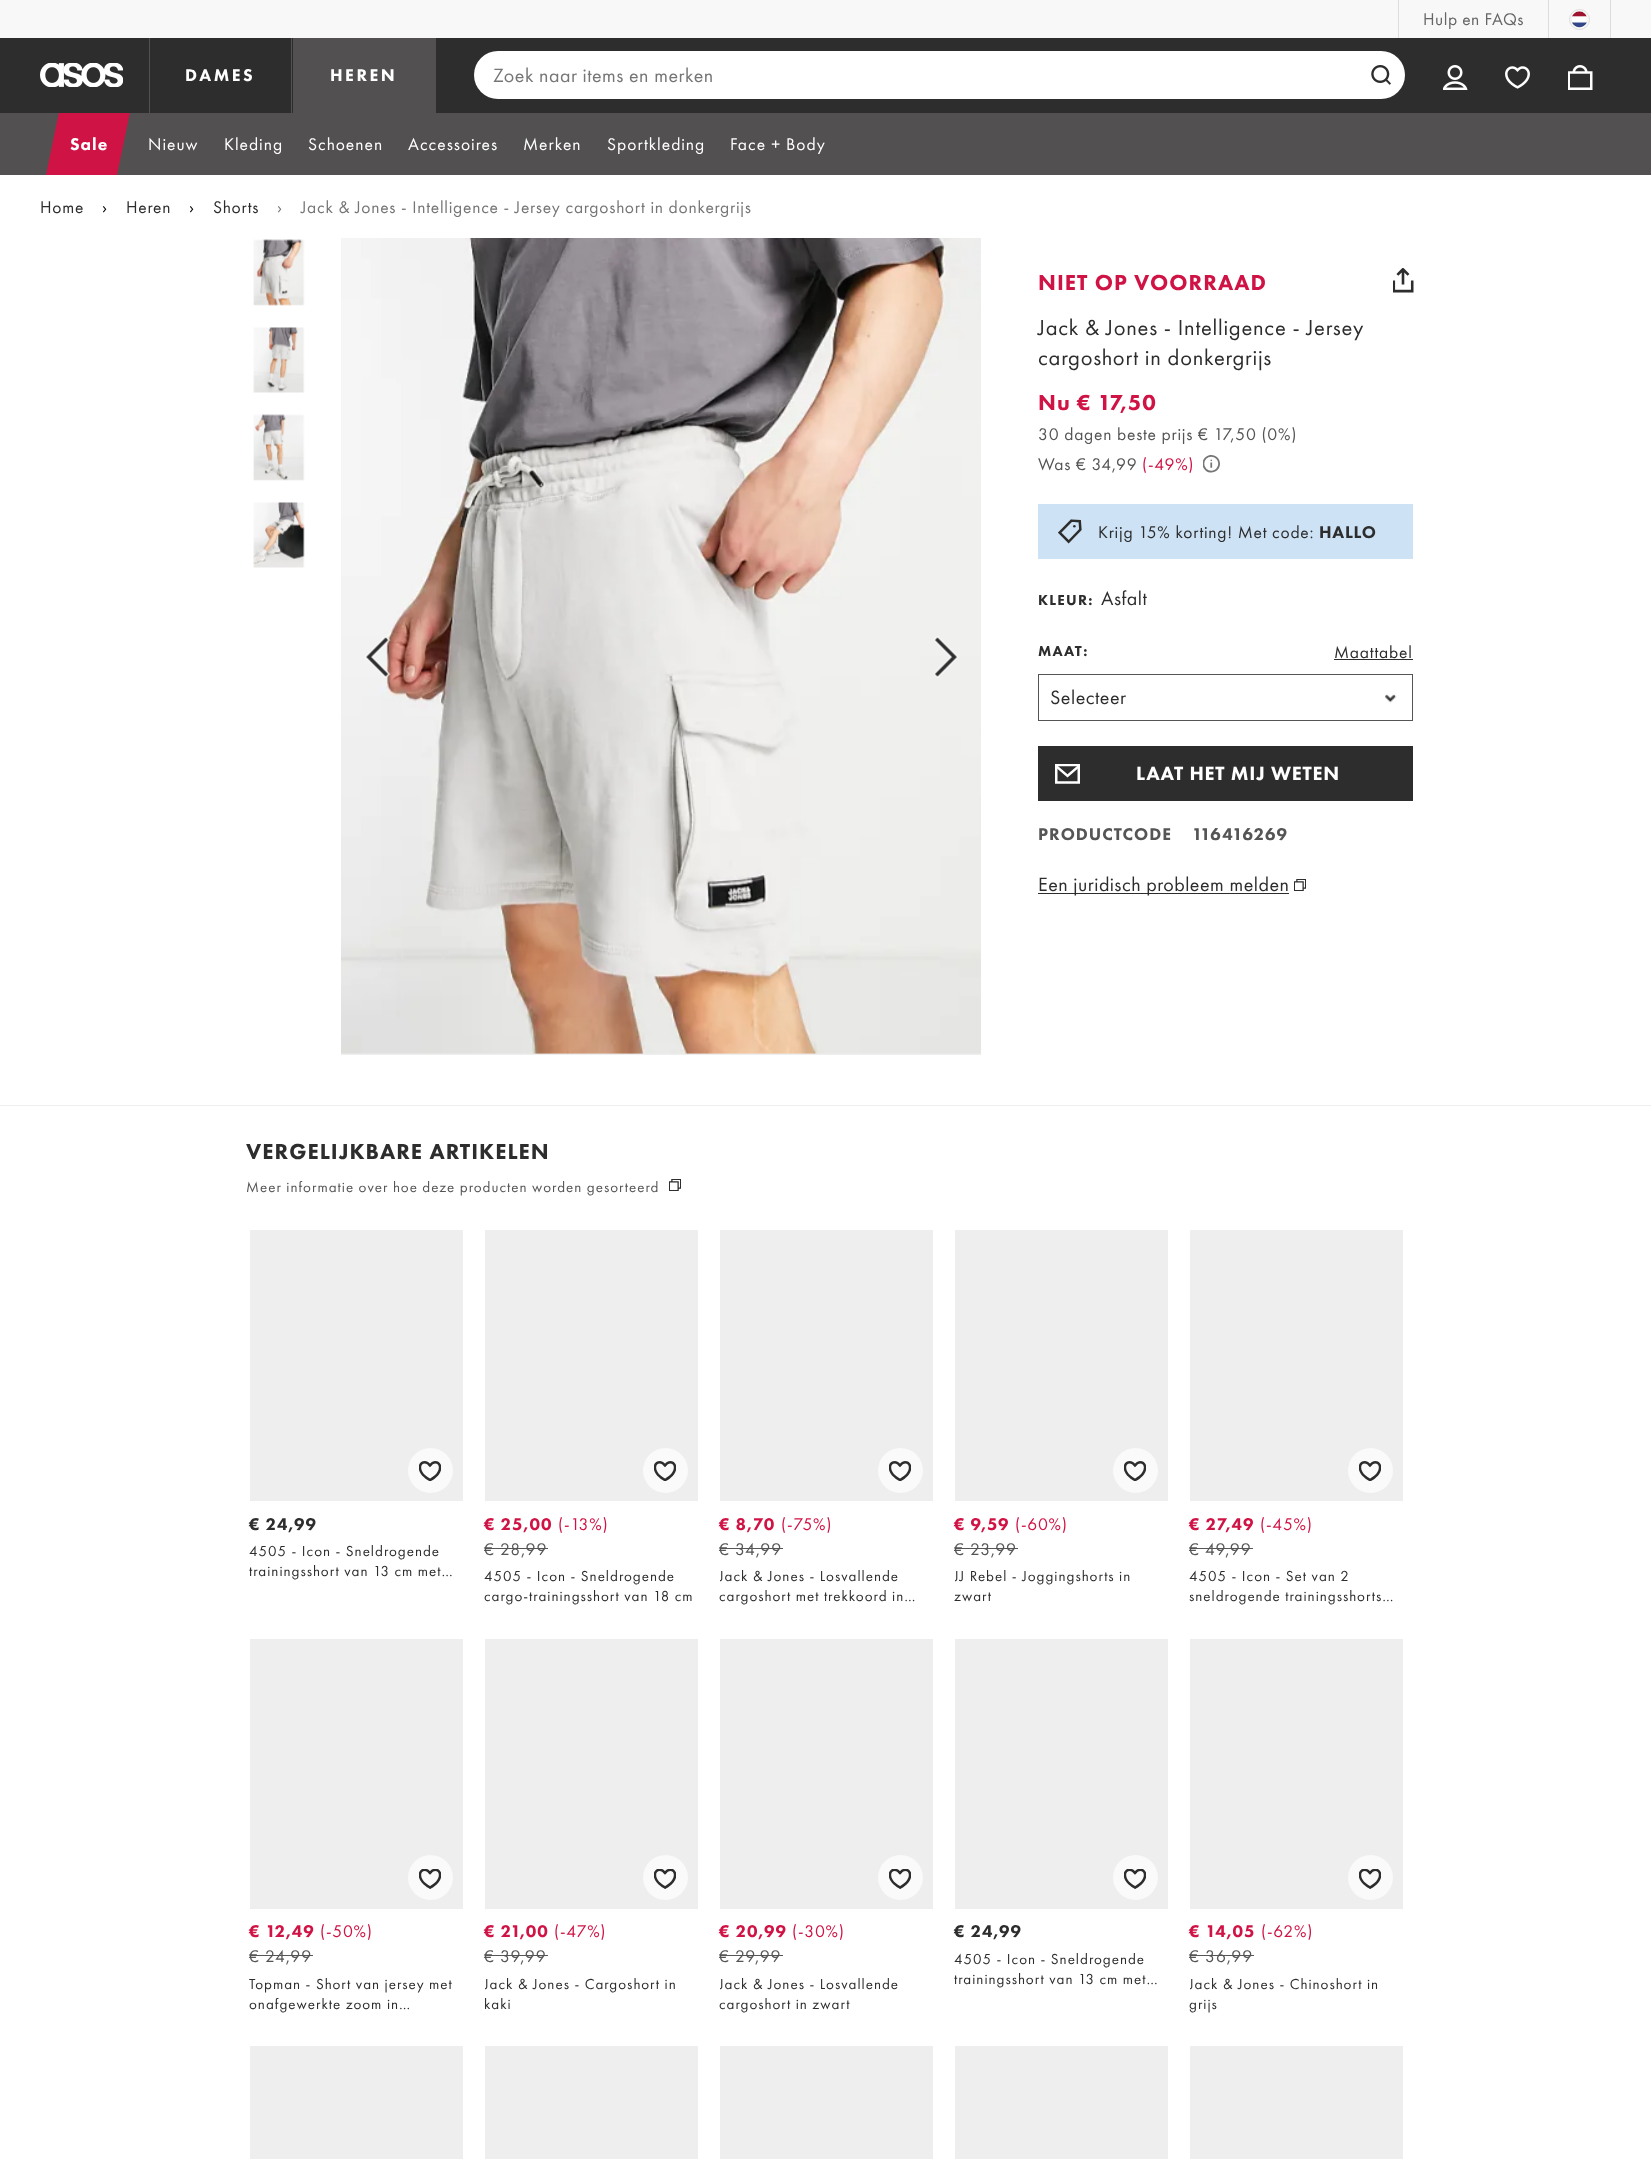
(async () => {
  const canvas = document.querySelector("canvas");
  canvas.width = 1651;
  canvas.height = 2159;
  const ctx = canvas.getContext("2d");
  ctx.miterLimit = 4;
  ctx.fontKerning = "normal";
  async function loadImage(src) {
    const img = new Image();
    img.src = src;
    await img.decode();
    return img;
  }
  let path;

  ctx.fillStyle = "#ffffff";
  ctx.fillRect(0, 0, 1651, 2159);
  for (const [x, y, w, h, color] of [
    [0, 0, 1651, 38, "#f8f8f8"],
    [1398, 0, 1, 38, "#dddddd"],
    [1610, 0, 1, 38, "#dddddd"],
    [1548, 0, 1, 38, "#dddddd"],
  ]) {
    ctx.fillStyle = color;
    ctx.fillRect(x, y, w, h);
  }
  ctx.drawImage(await loadImage("img/1.png"), 1571, 11, 17, 17);
  ctx.beginPath();
  ctx.arc(1579.5, 19.5, 10, 0, Math.PI * 2);
  ctx.strokeStyle = "#dddddd";
  ctx.stroke();
  ctx.fillStyle = "#2d2d2d";
  ctx.fillRect(0, 38, 1651, 75);
  ctx.drawImage(await loadImage("img/2.png"), 40, 63, 83, 24);
  for (const [x, y, w, h, color] of [
    [291, 38, 1, 75, "#525050"],
    [149, 38, 1, 75, "#525050"],
    [293, 38, 143, 75, "#525050"],
  ]) {
    ctx.fillStyle = color;
    ctx.fillRect(x, y, w, h);
  }
  ctx.fillStyle = "#ffffff";
  ctx.beginPath();
  ctx.roundRect(474, 51, 931, 48, 24);
  ctx.fill();
  ctx.drawImage(await loadImage("img/3.png"), 1371, 65, 20, 20);
  ctx.drawImage(await loadImage("img/4.png"), 1443, 65, 25, 25);
  ctx.drawImage(await loadImage("img/5.png"), 1505, 66, 25, 23);
  ctx.drawImage(await loadImage("img/6.png"), 1568, 65, 25, 25);
  ctx.fillStyle = "#525050";
  ctx.fillRect(0, 113, 1651, 62);
  ctx.save();
  ctx.beginPath();
  ctx.rect(0, 113, 1651, 62);
  ctx.clip();
  ctx.fillStyle = "#d01345";
  path = new Path2D("M59 112H130L117 175H46Z");
  ctx.fill(path);
  ctx.restore();
  ctx.fillStyle = "#eeeeee";
  ctx.fillRect(254, 241, 49, 64);
  ctx.drawImage(await loadImage("img/7.png"), 253, 239, 52, 67);
  ctx.drawImage(await loadImage("img/8.png"), 253, 327, 52, 66);
  ctx.fillRect(254, 416, 49, 64);
  ctx.drawImage(await loadImage("img/9.png"), 253, 414, 52, 67);
  ctx.drawImage(await loadImage("img/10.png"), 253, 502, 52, 66);
  ctx.fillRect(341, 1053, 640, 2);
  ctx.drawImage(await loadImage("img/11.png"), 341, 238, 640, 816);
  ctx.drawImage(await loadImage("img/12.png"), 365, 636, 26, 42);
  ctx.drawImage(await loadImage("img/13.png"), 933, 636, 26, 42);
  ctx.drawImage(await loadImage("img/14.png"), 1393, 268, 21, 25);
  ctx.drawImage(await loadImage("img/15.png"), 1203, 455, 17, 18);
  ctx.fillStyle = "#cde2f5";
  ctx.fillRect(1038, 504, 375, 55);
  ctx.drawImage(await loadImage("img/16.png"), 1058, 519, 24, 25);
  ctx.fillStyle = "#2d2d2d";
  ctx.fillRect(1334, 659, 79, 1);
  ctx.drawImage(await loadImage("img/17.png"), 1385, 694, 12, 9);
  ctx.strokeStyle = "#555555";
  ctx.strokeRect(1038.5, 674.5, 374, 46);
  ctx.fillRect(1038, 746, 375, 55);
  ctx.drawImage(await loadImage("img/18.png"), 1055, 764, 25, 20);
  ctx.fillRect(1038, 893, 251, 1);
  ctx.drawImage(await loadImage("img/19.png"), 1294, 879, 12, 12);
  ctx.fillStyle = "#eeeeee";
  ctx.fillRect(0, 1105, 1651, 1);
  ctx.drawImage(await loadImage("img/19.png"), 669, 1179, 12, 12);
  ctx.fillRect(250, 1230, 213, 271);
  ctx.fillStyle = "#fafafa";
  ctx.beginPath();
  ctx.arc(430.5, 1470.5, 22.5, 0, Math.PI * 2);
  ctx.fill();
  ctx.drawImage(await loadImage("img/20.png"), 419, 1461, 22, 20);
  ctx.fillStyle = "#eeeeee";
  ctx.fillRect(485, 1230, 213, 271);
  ctx.fillStyle = "#fafafa";
  ctx.beginPath();
  ctx.arc(665.5, 1470.5, 22.5, 0, Math.PI * 2);
  ctx.fill();
  ctx.drawImage(await loadImage("img/20.png"), 654, 1461, 22, 20);
  ctx.fillStyle = "#555555";
  ctx.fillRect(485, 1548, 63, 1);
  ctx.fillStyle = "#eeeeee";
  ctx.fillRect(720, 1230, 213, 271);
  ctx.fillStyle = "#fafafa";
  ctx.beginPath();
  ctx.arc(900.5, 1470.5, 22.5, 0, Math.PI * 2);
  ctx.fill();
  ctx.drawImage(await loadImage("img/20.png"), 889, 1461, 22, 20);
  ctx.fillStyle = "#555555";
  ctx.fillRect(720, 1548, 63, 1);
  ctx.fillStyle = "#eeeeee";
  ctx.fillRect(955, 1230, 213, 271);
  ctx.fillStyle = "#fafafa";
  ctx.beginPath();
  ctx.arc(1135.5, 1470.5, 22.5, 0, Math.PI * 2);
  ctx.fill();
  ctx.drawImage(await loadImage("img/20.png"), 1124, 1461, 22, 20);
  ctx.fillStyle = "#555555";
  ctx.fillRect(955, 1548, 63, 1);
  ctx.fillStyle = "#eeeeee";
  ctx.fillRect(1190, 1230, 213, 271);
  ctx.fillStyle = "#fafafa";
  ctx.beginPath();
  ctx.arc(1370.5, 1470.5, 22.5, 0, Math.PI * 2);
  ctx.fill();
  ctx.drawImage(await loadImage("img/20.png"), 1359, 1461, 22, 20);
  ctx.fillStyle = "#555555";
  ctx.fillRect(1190, 1548, 63, 1);
  ctx.fillStyle = "#eeeeee";
  ctx.fillRect(250, 1639, 213, 270);
  ctx.fillStyle = "#fafafa";
  ctx.beginPath();
  ctx.arc(430.5, 1877.5, 22.5, 0, Math.PI * 2);
  ctx.fill();
  ctx.drawImage(await loadImage("img/21.png"), 419, 1869, 22, 20);
  ctx.fillStyle = "#555555";
  ctx.fillRect(250, 1955, 63, 1);
  ctx.fillStyle = "#eeeeee";
  ctx.fillRect(485, 1639, 213, 270);
  ctx.fillStyle = "#fafafa";
  ctx.beginPath();
  ctx.arc(665.5, 1877.5, 22.5, 0, Math.PI * 2);
  ctx.fill();
  ctx.drawImage(await loadImage("img/21.png"), 654, 1869, 22, 20);
  ctx.fillStyle = "#555555";
  ctx.fillRect(485, 1955, 63, 1);
  ctx.fillStyle = "#eeeeee";
  ctx.fillRect(720, 1639, 213, 270);
  ctx.fillStyle = "#fafafa";
  ctx.beginPath();
  ctx.arc(900.5, 1877.5, 22.5, 0, Math.PI * 2);
  ctx.fill();
  ctx.drawImage(await loadImage("img/21.png"), 889, 1869, 22, 20);
  ctx.fillStyle = "#555555";
  ctx.fillRect(720, 1955, 63, 1);
  ctx.fillStyle = "#eeeeee";
  ctx.fillRect(955, 1639, 213, 270);
  ctx.fillStyle = "#fafafa";
  ctx.beginPath();
  ctx.arc(1135.5, 1877.5, 22.5, 0, Math.PI * 2);
  ctx.fill();
  ctx.drawImage(await loadImage("img/21.png"), 1124, 1869, 22, 20);
  ctx.fillStyle = "#eeeeee";
  ctx.fillRect(1190, 1639, 213, 270);
  ctx.fillStyle = "#fafafa";
  ctx.beginPath();
  ctx.arc(1370.5, 1877.5, 22.5, 0, Math.PI * 2);
  ctx.fill();
  ctx.drawImage(await loadImage("img/21.png"), 1359, 1869, 22, 20);
  for (const [x, y, w, h, color] of [
    [1190, 1955, 64, 1, "#555555"],
    [250, 2046, 213, 113, "#eeeeee"],
    [485, 2046, 213, 113, "#eeeeee"],
    [720, 2046, 213, 113, "#eeeeee"],
    [955, 2046, 213, 113, "#eeeeee"],
    [1190, 2046, 213, 113, "#eeeeee"],
  ]) {
    ctx.fillStyle = color;
    ctx.fillRect(x, y, w, h);
  }
  ctx.letterSpacing = "0.5px";
  ctx.font = "17.5px Futura PT";
  ctx.fillStyle = "#666666";
  ctx.fillText("Hulp en FAQs", 1423, 25);
  ctx.letterSpacing = "2.5px";
  ctx.font = "900 17.5px Futura PT";
  ctx.fillStyle = "#ffffff";
  ctx.fillText("DAMES", 185, 81);
  ctx.fillText("HEREN", 330, 81);
  ctx.letterSpacing = "0.5px";
  ctx.font = "20px Futura PT";
  ctx.fillStyle = "#767676";
  ctx.fillText("Zoek naar items en merken", 493, 82);
  ctx.letterSpacing = "1px";
  ctx.font = "900 17.5px Futura PT";
  ctx.fillStyle = "#ffffff";
  ctx.fillText("Sale", 70, 150);
  ctx.font = "17.5px Futura PT";
  for (const [text, x, y] of [
    ["Nieuw", 148, 150],
    ["Kleding", 224, 150],
    ["Schoenen", 308, 150],
    ["Accessoires", 408, 150],
    ["Merken", 523, 150],
    ["Sportkleding", 607, 150],
    ["Face + Body", 730, 150],
  ]) {
    ctx.fillText(text, x, y);
  }
  ctx.letterSpacing = "0.75px";
  ctx.fillStyle = "#2d2d2d";
  ctx.fillText("Home", 40, 213);
  ctx.fillStyle = "#000000";
  ctx.fillText("›", 102, 213);
  ctx.fillStyle = "#2d2d2d";
  ctx.fillText("Heren", 126, 213);
  ctx.fillStyle = "#000000";
  ctx.fillText("›", 189, 213);
  ctx.fillStyle = "#2d2d2d";
  ctx.fillText("Shorts", 213, 213);
  ctx.fillStyle = "#767676";
  ctx.fillText("›", 277, 213);
  ctx.fillText("Jack & Jones - Intelligence - Jersey cargoshort in donkergrijs", 301, 213);
  ctx.letterSpacing = "1px";
  ctx.font = "900 22.5px Futura PT";
  ctx.fillStyle = "#d01345";
  ctx.fillText("NIET OP VOORRAAD", 1038, 290);
  ctx.letterSpacing = "0.75px";
  ctx.font = "22.5px Futura PT";
  ctx.fillStyle = "#2d2d2d";
  ctx.fillText("Jack & Jones - Intelligence - Jersey", 1038, 335);
  ctx.fillText("cargoshort in donkergrijs", 1038, 365);
  ctx.letterSpacing = "1px";
  ctx.font = "900 22.5px Futura PT";
  ctx.fillStyle = "#d01345";
  ctx.fillText("Nu € 17,50", 1038, 410);
  ctx.letterSpacing = "0.75px";
  ctx.font = "17.5px Futura PT";
  ctx.fillStyle = "#555555";
  ctx.fillText("30 dagen beste prijs € 17,50 (0%)", 1038, 440);
  ctx.fillText("Was € 34,99", 1038, 470);
  ctx.fillStyle = "#d01345";
  ctx.fillText("(-49%)", 1142, 470);
  ctx.fillStyle = "#2d2d2d";
  ctx.fillText("Krijg 15% korting! Met code:", 1098, 538);
  ctx.font = "900 17.5px Futura PT";
  ctx.fillText("HALLO", 1319, 538);
  ctx.letterSpacing = "1.25px";
  ctx.font = "900 15px Futura PT";
  ctx.fillText("KLEUR:", 1038, 605);
  ctx.letterSpacing = "0.5px";
  ctx.font = "20px Futura PT";
  ctx.fillText("Asfalt", 1101, 605);
  ctx.letterSpacing = "1.25px";
  ctx.font = "900 15px Futura PT";
  ctx.fillText("MAAT:", 1038, 656);
  ctx.letterSpacing = "0.75px";
  ctx.font = "17.5px Futura PT";
  ctx.fillText("Maattabel", 1334, 658);
  ctx.letterSpacing = "0.5px";
  ctx.font = "20px Futura PT";
  ctx.fillText("Selecteer", 1050, 704);
  ctx.letterSpacing = "0.75px";
  ctx.font = "900 20px Futura PT";
  ctx.fillStyle = "#ffffff";
  ctx.fillText("LAAT HET MIJ WETEN", 1136, 780);
  ctx.letterSpacing = "1px";
  ctx.font = "900 17.5px Futura PT";
  ctx.fillStyle = "#555555";
  ctx.fillText("PRODUCTCODE", 1038, 840);
  ctx.fillText("116416269", 1192, 840);
  ctx.letterSpacing = "0.5px";
  ctx.font = "20px Futura PT";
  ctx.fillStyle = "#2d2d2d";
  ctx.fillText("Een juridisch probleem melden", 1038, 891);
  ctx.letterSpacing = "1px";
  ctx.font = "900 22.5px Futura PT";
  ctx.fillText("VERGELIJKBARE ARTIKELEN", 246, 1159);
  ctx.font = "15px Futura PT";
  ctx.fillStyle = "#555555";
  ctx.fillText("Meer informatie over hoe deze producten worden gesorteerd", 246, 1192);
  ctx.font = "900 17.5px Futura PT";
  ctx.fillStyle = "#2d2d2d";
  ctx.fillText("€ 24,99", 249, 1530);
  ctx.font = "15px Futura PT";
  ctx.fillText("4505 - Icon - Sneldrogende", 249, 1556);
  ctx.fillText("trainingsshort van 13 cm met…", 249, 1576);
  ctx.font = "900 17.5px Futura PT";
  ctx.fillStyle = "#d01345";
  ctx.fillText("€ 25,00", 484, 1530);
  ctx.letterSpacing = "0.75px";
  ctx.font = "17.5px Futura PT";
  ctx.fillText("(-13%)", 558, 1530);
  ctx.letterSpacing = "1px";
  ctx.fillStyle = "#555555";
  ctx.fillText("€ 28,99", 484, 1555);
  ctx.font = "15px Futura PT";
  ctx.fillStyle = "#2d2d2d";
  ctx.fillText("4505 - Icon - Sneldrogende", 484, 1581);
  ctx.fillText("cargo-trainingsshort van 18 cm", 484, 1601);
  ctx.font = "900 17.5px Futura PT";
  ctx.fillStyle = "#d01345";
  ctx.fillText("€ 8,70", 719, 1530);
  ctx.letterSpacing = "0.75px";
  ctx.font = "17.5px Futura PT";
  ctx.fillText("(-75%)", 781, 1530);
  ctx.letterSpacing = "1px";
  ctx.fillStyle = "#555555";
  ctx.fillText("€ 34,99", 719, 1555);
  ctx.save();
  ctx.beginPath();
  ctx.rect(720, 1561, 213, 45);
  ctx.clip();
  ctx.font = "15px Futura PT";
  ctx.fillStyle = "#2d2d2d";
  ctx.fillText("Jack & Jones - Losvallende", 719, 1581);
  ctx.restore();
  ctx.font = "15px Futura PT";
  ctx.fillStyle = "#2d2d2d";
  ctx.fillText("cargoshort met trekkoord in…", 719, 1601);
  ctx.font = "900 17.5px Futura PT";
  ctx.fillStyle = "#d01345";
  ctx.fillText("€ 9,59", 954, 1530);
  ctx.letterSpacing = "0.75px";
  ctx.font = "17.5px Futura PT";
  ctx.fillText("(-60%)", 1015, 1530);
  ctx.letterSpacing = "1px";
  ctx.fillStyle = "#555555";
  ctx.fillText("€ 23,99", 954, 1555);
  ctx.save();
  ctx.beginPath();
  ctx.rect(955, 1561, 213, 45);
  ctx.clip();
  ctx.font = "15px Futura PT";
  ctx.fillStyle = "#2d2d2d";
  ctx.fillText("JJ Rebel - Joggingshorts in", 954, 1581);
  ctx.restore();
  ctx.font = "15px Futura PT";
  ctx.fillStyle = "#2d2d2d";
  ctx.fillText("zwart", 954, 1601);
  ctx.font = "900 17.5px Futura PT";
  ctx.fillStyle = "#d01345";
  ctx.fillText("€ 27,49", 1189, 1530);
  ctx.letterSpacing = "0.75px";
  ctx.font = "17.5px Futura PT";
  ctx.fillText("(-45%)", 1260, 1530);
  ctx.letterSpacing = "1px";
  ctx.fillStyle = "#555555";
  ctx.fillText("€ 49,99", 1189, 1555);
  ctx.font = "15px Futura PT";
  ctx.fillStyle = "#2d2d2d";
  ctx.fillText("4505 - Icon - Set van 2", 1189, 1581);
  ctx.fillText("sneldrogende trainingsshorts…", 1189, 1601);
  ctx.font = "900 17.5px Futura PT";
  ctx.fillStyle = "#d01345";
  ctx.fillText("€ 12,49", 249, 1937);
  ctx.letterSpacing = "0.75px";
  ctx.font = "17.5px Futura PT";
  ctx.fillText("(-50%)", 320, 1937);
  ctx.letterSpacing = "1px";
  ctx.fillStyle = "#555555";
  ctx.fillText("€ 24,99", 249, 1962);
  ctx.font = "15px Futura PT";
  ctx.fillStyle = "#2d2d2d";
  ctx.fillText("Topman - Short van jersey met", 249, 1989);
  ctx.fillText("onafgewerkte zoom in…", 249, 2009);
  ctx.font = "900 17.5px Futura PT";
  ctx.fillStyle = "#d01345";
  ctx.fillText("€ 21,00", 484, 1937);
  ctx.letterSpacing = "0.75px";
  ctx.font = "17.5px Futura PT";
  ctx.fillText("(-47%)", 554, 1937);
  ctx.letterSpacing = "1px";
  ctx.fillStyle = "#555555";
  ctx.fillText("€ 39,99", 484, 1962);
  ctx.save();
  ctx.beginPath();
  ctx.rect(485, 1969, 213, 45);
  ctx.clip();
  ctx.font = "15px Futura PT";
  ctx.fillStyle = "#2d2d2d";
  ctx.fillText("Jack & Jones - Cargoshort in", 484, 1989);
  ctx.restore();
  ctx.font = "15px Futura PT";
  ctx.fillStyle = "#2d2d2d";
  ctx.fillText("kaki", 484, 2009);
  ctx.font = "900 17.5px Futura PT";
  ctx.fillStyle = "#d01345";
  ctx.fillText("€ 20,99", 719, 1937);
  ctx.letterSpacing = "0.75px";
  ctx.font = "17.5px Futura PT";
  ctx.fillText("(-30%)", 792, 1937);
  ctx.letterSpacing = "1px";
  ctx.fillStyle = "#555555";
  ctx.fillText("€ 29,99", 719, 1962);
  ctx.save();
  ctx.beginPath();
  ctx.rect(720, 1969, 213, 45);
  ctx.clip();
  ctx.font = "15px Futura PT";
  ctx.fillStyle = "#2d2d2d";
  ctx.fillText("Jack & Jones - Losvallende", 719, 1989);
  ctx.restore();
  ctx.font = "15px Futura PT";
  ctx.fillStyle = "#2d2d2d";
  ctx.fillText("cargoshort in zwart", 719, 2009);
  ctx.font = "900 17.5px Futura PT";
  ctx.fillText("€ 24,99", 954, 1937);
  ctx.font = "15px Futura PT";
  ctx.fillText("4505 - Icon - Sneldrogende", 954, 1964);
  ctx.fillText("trainingsshort van 13 cm met…", 954, 1984);
  ctx.font = "900 17.5px Futura PT";
  ctx.fillStyle = "#d01345";
  ctx.fillText("€ 14,05", 1189, 1937);
  ctx.letterSpacing = "0.75px";
  ctx.font = "17.5px Futura PT";
  ctx.fillText("(-62%)", 1261, 1937);
  ctx.letterSpacing = "1px";
  ctx.fillStyle = "#555555";
  ctx.fillText("€ 36,99", 1189, 1962);
  ctx.save();
  ctx.beginPath();
  ctx.rect(1190, 1969, 213, 45);
  ctx.clip();
  ctx.font = "15px Futura PT";
  ctx.fillStyle = "#2d2d2d";
  ctx.fillText("Jack & Jones - Chinoshort in", 1189, 1989);
  ctx.restore();
  ctx.font = "15px Futura PT";
  ctx.fillStyle = "#2d2d2d";
  ctx.fillText("grijs", 1189, 2009);
})();
